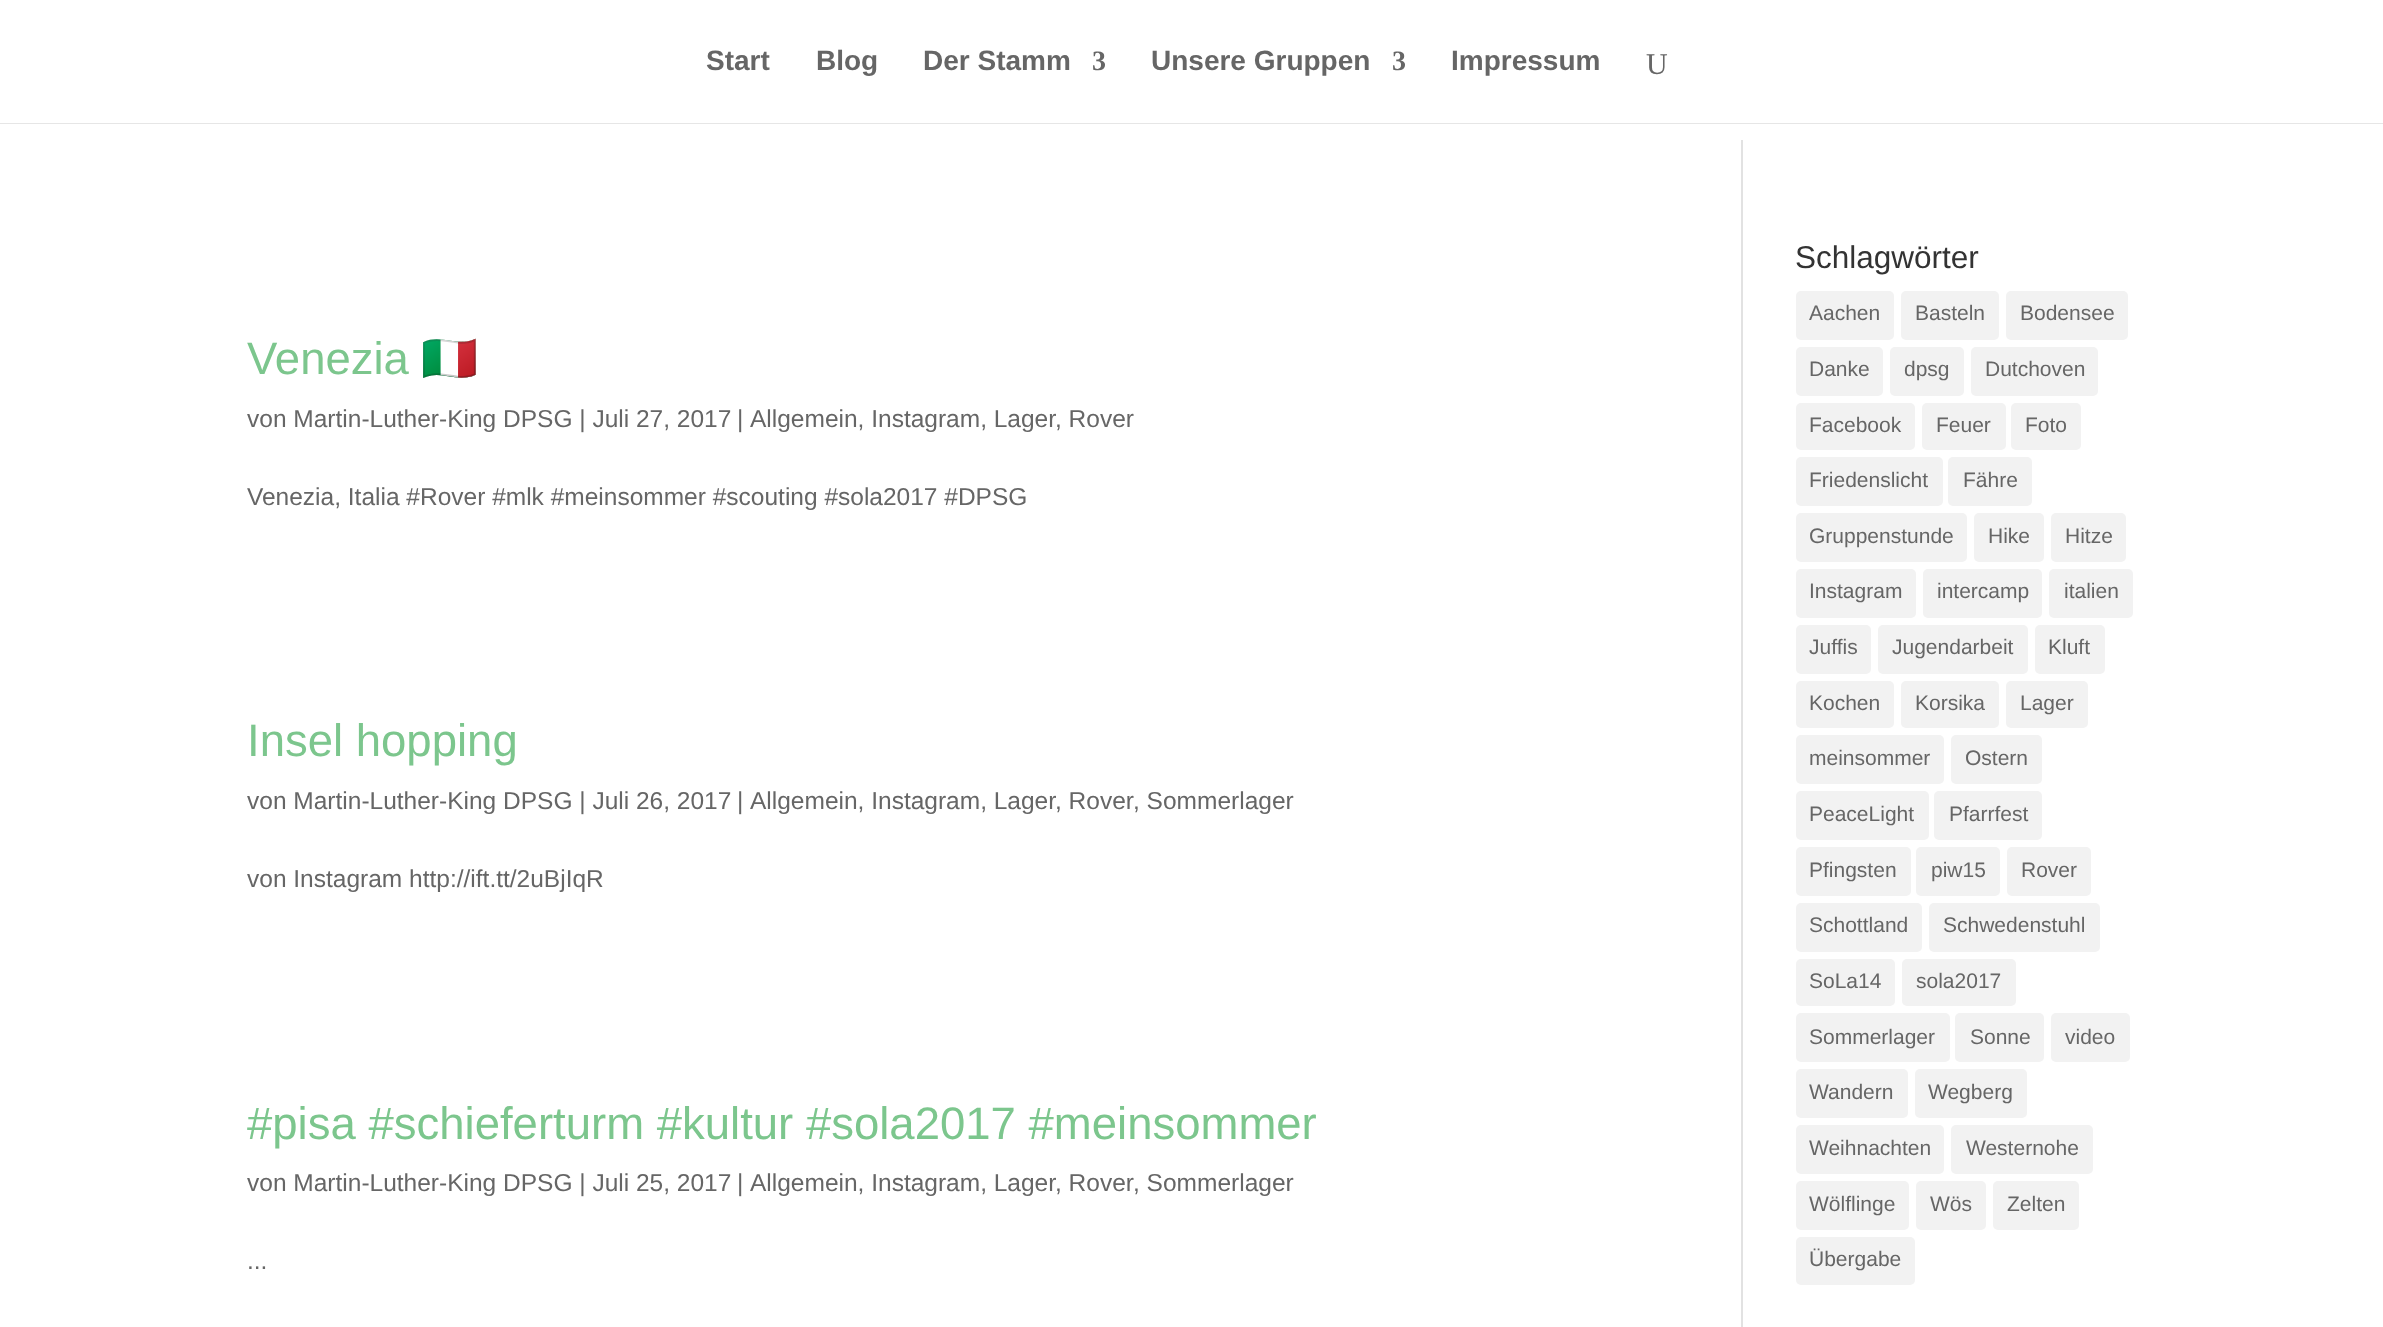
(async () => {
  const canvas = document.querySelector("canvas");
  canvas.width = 2383;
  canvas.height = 1327;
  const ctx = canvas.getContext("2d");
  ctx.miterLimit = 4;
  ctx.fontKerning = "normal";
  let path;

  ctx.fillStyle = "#ffffff";
  ctx.fillRect(0, 0, 2383, 1327);
  ctx.fillStyle = "#e6e6e6";
  path = new Path2D("M0 122V124H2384V2V122Z");
  ctx.fill(path);
  ctx.fillStyle = "#ffffff";
  ctx.fillRect(0, 122, 2383, 1);
  ctx.fillStyle = "#e2e2e2";
  ctx.fillRect(1741, 140, 2, 1187);
  ctx.fillStyle = "#f2f2f2";
  ctx.beginPath();
  ctx.roundRect(1796, 291, 98, 49, 5);
  ctx.fill();
  ctx.beginPath();
  ctx.roundRect(1901, 291, 98, 49, 5);
  ctx.fill();
  ctx.beginPath();
  ctx.roundRect(2006, 291, 122, 49, 5);
  ctx.fill();
  ctx.beginPath();
  ctx.roundRect(1796, 347, 87, 49, 5);
  ctx.fill();
  ctx.beginPath();
  ctx.roundRect(1890, 347, 74, 49, 5);
  ctx.fill();
  ctx.beginPath();
  ctx.roundRect(1971, 347, 127, 49, 5);
  ctx.fill();
  ctx.beginPath();
  ctx.roundRect(1796, 403, 119, 47, 5);
  ctx.fill();
  ctx.beginPath();
  ctx.roundRect(1922, 403, 84, 47, 5);
  ctx.fill();
  ctx.beginPath();
  ctx.roundRect(2011, 403, 70, 47, 5);
  ctx.fill();
  ctx.beginPath();
  ctx.roundRect(1796, 457, 147, 49, 5);
  ctx.fill();
  ctx.beginPath();
  ctx.roundRect(1948, 457, 84, 49, 5);
  ctx.fill();
  ctx.beginPath();
  ctx.roundRect(1796, 513, 171, 49, 5);
  ctx.fill();
  ctx.beginPath();
  ctx.roundRect(1974, 513, 70, 49, 5);
  ctx.fill();
  ctx.beginPath();
  ctx.roundRect(2051, 513, 75, 49, 5);
  ctx.fill();
  ctx.beginPath();
  ctx.roundRect(1796, 569, 120, 49, 5);
  ctx.fill();
  ctx.beginPath();
  ctx.roundRect(1923, 569, 119, 49, 5);
  ctx.fill();
  ctx.beginPath();
  ctx.roundRect(2049, 569, 84, 49, 5);
  ctx.fill();
  ctx.beginPath();
  ctx.roundRect(1796, 625, 75, 49, 5);
  ctx.fill();
  ctx.beginPath();
  ctx.roundRect(1878, 625, 150, 49, 5);
  ctx.fill();
  ctx.beginPath();
  ctx.roundRect(2035, 625, 70, 49, 5);
  ctx.fill();
  ctx.beginPath();
  ctx.roundRect(1796, 681, 98, 47, 5);
  ctx.fill();
  ctx.beginPath();
  ctx.roundRect(1901, 681, 98, 47, 5);
  ctx.fill();
  ctx.beginPath();
  ctx.roundRect(2006, 681, 82, 47, 5);
  ctx.fill();
  ctx.beginPath();
  ctx.roundRect(1796, 735, 148, 49, 5);
  ctx.fill();
  ctx.beginPath();
  ctx.roundRect(1951, 735, 91, 49, 5);
  ctx.fill();
  ctx.beginPath();
  ctx.roundRect(1796, 791, 133, 49, 5);
  ctx.fill();
  ctx.beginPath();
  ctx.roundRect(1934, 791, 108, 49, 5);
  ctx.fill();
  ctx.beginPath();
  ctx.roundRect(1796, 847, 115, 49, 5);
  ctx.fill();
  ctx.beginPath();
  ctx.roundRect(1916, 847, 84, 49, 5);
  ctx.fill();
  ctx.beginPath();
  ctx.roundRect(2007, 847, 84, 49, 5);
  ctx.fill();
  ctx.beginPath();
  ctx.roundRect(1796, 903, 126, 49, 5);
  ctx.fill();
  ctx.beginPath();
  ctx.roundRect(1929, 903, 171, 49, 5);
  ctx.fill();
  ctx.beginPath();
  ctx.roundRect(1796, 959, 99, 47, 5);
  ctx.fill();
  ctx.beginPath();
  ctx.roundRect(1902, 959, 114, 47, 5);
  ctx.fill();
  ctx.beginPath();
  ctx.roundRect(1796, 1013, 154, 49, 5);
  ctx.fill();
  ctx.beginPath();
  ctx.roundRect(1955, 1013, 89, 49, 5);
  ctx.fill();
  ctx.beginPath();
  ctx.roundRect(2051, 1013, 79, 49, 5);
  ctx.fill();
  ctx.beginPath();
  ctx.roundRect(1796, 1069, 112, 49, 5);
  ctx.fill();
  ctx.beginPath();
  ctx.roundRect(1915, 1069, 112, 49, 5);
  ctx.fill();
  ctx.beginPath();
  ctx.roundRect(1796, 1125, 148, 49, 5);
  ctx.fill();
  ctx.beginPath();
  ctx.roundRect(1951, 1125, 142, 49, 5);
  ctx.fill();
  ctx.beginPath();
  ctx.roundRect(1796, 1181, 113, 49, 5);
  ctx.fill();
  ctx.beginPath();
  ctx.roundRect(1916, 1181, 70, 49, 5);
  ctx.fill();
  ctx.beginPath();
  ctx.roundRect(1993, 1181, 86, 49, 5);
  ctx.fill();
  ctx.beginPath();
  ctx.roundRect(1796, 1237, 119, 48, 5);
  ctx.fill();
  ctx.font = "bold 28px Liberation Sans";
  ctx.fillStyle = "#666666";
  for (const [text, x, y] of [
    ["Start", 706, 70],
    ["Blog", 816, 70],
    ["Der Stamm", 923, 70],
  ]) {
    ctx.fillText(text, x, y);
  }
  ctx.font = "bold 28px Liberation Serif";
  ctx.fillText("3", 1092, 70);
  ctx.font = "bold 28px Liberation Sans";
  ctx.fillText("Unsere Gruppen", 1151, 70);
  ctx.font = "bold 28px Liberation Serif";
  ctx.fillText("3", 1392, 70);
  ctx.font = "bold 28px Liberation Sans";
  ctx.fillText("Impressum", 1451, 70);
  ctx.font = "30px Liberation Serif";
  ctx.fillText("U", 1646, 74);
  ctx.font = "45.5px Liberation Sans";
  ctx.fillStyle = "#7cc68d";
  ctx.fillText("Venezia", 247, 374);
  ctx.font = "45.5px Noto Color Emoji";
  ctx.fillText("🇮🇹", 421, 374);
  ctx.font = "24.5px Liberation Sans";
  ctx.fillStyle = "#666666";
  for (const [text, x, y] of [
    ["von Martin-Luther-King DPSG | Juli 27, 2017", 247, 427],
    ["|", 737, 427],
    ["Allgemein, Instagram, Lager", 750, 427],
    [", Rover", 1055, 427],
    ["Venezia, Italia #Rover #mlk #meinsommer #scouting #sola2017 #DPSG", 247, 505],
  ]) {
    ctx.fillText(text, x, y);
  }
  ctx.font = "45.5px Liberation Sans";
  ctx.fillStyle = "#7cc68d";
  ctx.fillText("Insel hopping", 247, 756);
  ctx.font = "24.5px Liberation Sans";
  ctx.fillStyle = "#666666";
  for (const [text, x, y] of [
    ["von Martin-Luther-King DPSG | Juli 26, 2017", 247, 809],
    ["|", 737, 809],
    ["Allgemein, Instagram, Lager", 750, 809],
    [", Rover", 1055, 809],
    [", Sommerlager", 1133, 809],
    ["von Instagram http://ift.tt/2uBjIqR", 247, 887],
  ]) {
    ctx.fillText(text, x, y);
  }
  ctx.font = "45.5px Liberation Sans";
  ctx.fillStyle = "#7cc68d";
  ctx.fillText("#pisa #schieferturm #kultur #sola2017 #meinsommer", 247, 1139);
  ctx.font = "24.5px Liberation Sans";
  ctx.fillStyle = "#666666";
  for (const [text, x, y] of [
    ["von Martin-Luther-King DPSG | Juli 25, 2017", 247, 1191],
    ["|", 737, 1191],
    ["Allgemein, Instagram, Lager", 750, 1191],
    [", Rover", 1055, 1191],
    [", Sommerlager", 1133, 1191],
    ["...", 247, 1269],
  ]) {
    ctx.fillText(text, x, y);
  }
  ctx.font = "31.5px Liberation Sans";
  ctx.fillStyle = "#333333";
  ctx.fillText("Schlagwörter", 1795, 268);
  ctx.font = "21px Liberation Sans";
  ctx.fillStyle = "#666666";
  for (const [text, x, y] of [
    ["Aachen", 1809, 320],
    ["Basteln", 1915, 320],
    ["Bodensee", 2020, 320],
    ["Danke", 1809, 376],
    ["dpsg", 1904, 376],
    ["Dutchoven", 1985, 376],
    ["Facebook", 1809, 432],
    ["Feuer", 1936, 432],
    ["Foto", 2025, 432],
    ["Friedenslicht", 1809, 487],
    ["Fähre", 1963, 487],
    ["Gruppenstunde", 1809, 543],
    ["Hike", 1988, 543],
    ["Hitze", 2065, 543],
    ["Instagram", 1809, 598],
    ["intercamp", 1937, 598],
    ["italien", 2064, 598],
    ["Juffis", 1809, 654],
    ["Jugendarbeit", 1892, 654],
    ["Kluft", 2048, 654],
    ["Kochen", 1809, 710],
    ["Korsika", 1915, 710],
    ["Lager", 2020, 710],
    ["meinsommer", 1809, 765],
    ["Ostern", 1965, 765],
    ["PeaceLight", 1809, 821],
    ["Pfarrfest", 1949, 821],
    ["Pfingsten", 1809, 877],
    ["piw15", 1931, 877],
    ["Rover", 2021, 877],
    ["Schottland", 1809, 932],
    ["Schwedenstuhl", 1943, 932],
    ["SoLa14", 1809, 988],
    ["sola2017", 1916, 988],
    ["Sommerlager", 1809, 1044],
    ["Sonne", 1970, 1044],
    ["video", 2065, 1044],
    ["Wandern", 1809, 1099],
    ["Wegberg", 1928, 1099],
    ["Weihnachten", 1809, 1155],
    ["Westernohe", 1966, 1155],
    ["Wölflinge", 1809, 1211],
    ["Wös", 1930, 1211],
    ["Zelten", 2007, 1211],
    ["Übergabe", 1809, 1266],
  ]) {
    ctx.fillText(text, x, y);
  }
})();
